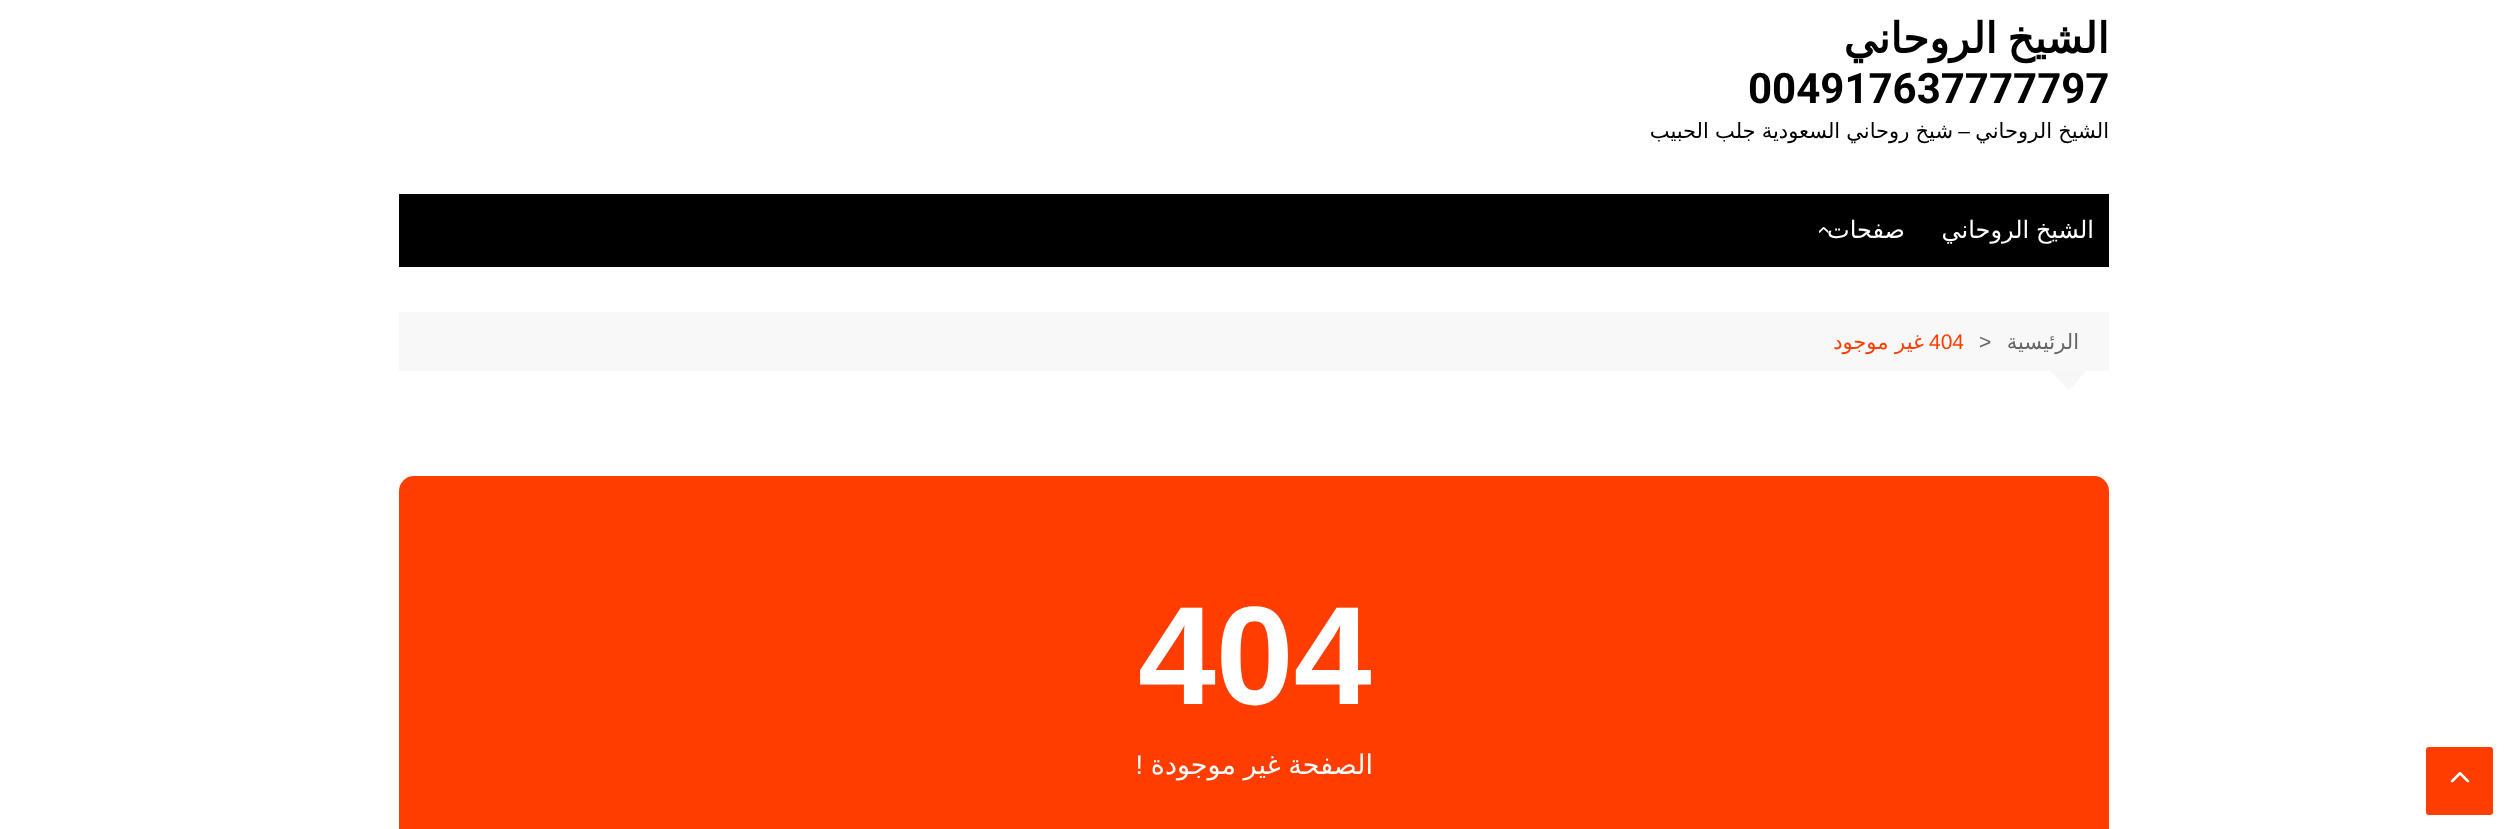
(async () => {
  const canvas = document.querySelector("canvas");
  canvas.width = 2507;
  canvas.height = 829;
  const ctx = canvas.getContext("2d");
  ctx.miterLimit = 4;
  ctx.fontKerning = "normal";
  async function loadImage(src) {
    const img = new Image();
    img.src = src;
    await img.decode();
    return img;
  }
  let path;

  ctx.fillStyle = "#ffffff";
  ctx.fillRect(0, 0, 2507, 829);
  ctx.fillStyle = "#ff3d00";
  ctx.beginPath();
  ctx.roundRect(2426, 747, 67, 68, 3);
  ctx.fill();
  ctx.drawImage(await loadImage("img/1.png"), 2450, 772, 20, 11);
  ctx.fillStyle = "#000000";
  ctx.fillRect(399, 194, 1710, 73);
  ctx.fillStyle = "#f8f8f8";
  ctx.fillRect(399, 312, 1710, 59);
  ctx.fillStyle = "#f7f7f7";
  path = new Path2D("M2050.5 371H2086.5L2068.5 390.5Z");
  ctx.fill(path);
  ctx.fillStyle = "#ff3d00";
  ctx.beginPath();
  ctx.roundRect(399, 476, 1710, 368, 15);
  ctx.fill();
  ctx.wordSpacing = "-3px";
  ctx.direction = "rtl";
  ctx.font = "bold 42px DejaVu Sans";
  ctx.fillStyle = "#010101";
  ctx.fillText("الشيخ الروحاني", 2109, 53);
  ctx.wordSpacing = "0px";
  ctx.direction = "ltr";
  ctx.font = "bold 42px Roboto";
  ctx.fillText("004917637777797", 1748, 103);
  ctx.wordSpacing = "-0.5px";
  ctx.direction = "rtl";
  ctx.font = "21px DejaVu Sans";
  ctx.fillText("الشيخ الروحاني", 2109, 138);
  ctx.wordSpacing = "0px";
  ctx.font = "21px Liberation Sans";
  ctx.fillText("–", 1970, 138);
  ctx.wordSpacing = "-0.5px";
  ctx.font = "21px DejaVu Sans";
  ctx.fillText("شيخ روحاني السعودية جلب الحبيب", 1953, 138);
  ctx.wordSpacing = "-1px";
  ctx.font = "24px DejaVu Sans";
  ctx.fillStyle = "#ffffff";
  ctx.fillText("الشيخ الروحاني", 2094, 238);
  ctx.wordSpacing = "0px";
  ctx.fillText("صفحات", 1905, 238);
  ctx.direction = "ltr";
  ctx.font = "24px Liberation Sans";
  ctx.save();
  ctx.translate(1830, 234);
  ctx.rotate(-90 * Math.PI / 180);
  ctx.fillText("›", 0, 0);
  ctx.restore();
  ctx.direction = "rtl";
  ctx.font = "21px DejaVu Sans";
  ctx.fillStyle = "#666666";
  ctx.fillText("الرئيسية", 2079, 349);
  ctx.direction = "ltr";
  ctx.font = "21px Liberation Sans";
  ctx.fillText(">", 1979, 349);
  ctx.fillStyle = "#ff3d00";
  ctx.fillText("404", 1929, 349);
  ctx.direction = "rtl";
  ctx.font = "21px DejaVu Sans";
  ctx.fillText("غير موجود", 1924, 349);
  ctx.direction = "ltr";
  ctx.font = "bold 140px Liberation Sans";
  ctx.fillStyle = "#ffffff";
  ctx.fillText("404", 1138, 704);
  ctx.wordSpacing = "-1px";
  ctx.direction = "rtl";
  ctx.font = "27px DejaVu Sans";
  ctx.fillText("الصفحة غير موجودة", 1373, 774);
  ctx.wordSpacing = "0px";
  ctx.font = "27px Liberation Sans";
  ctx.fillText("!", 1143, 774);
})();
